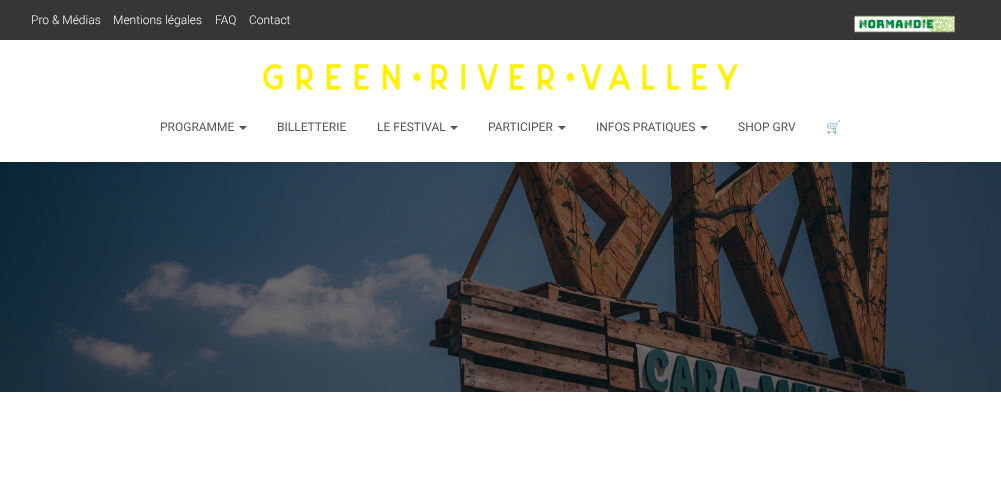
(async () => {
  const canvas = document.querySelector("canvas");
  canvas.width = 1001;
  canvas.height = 485;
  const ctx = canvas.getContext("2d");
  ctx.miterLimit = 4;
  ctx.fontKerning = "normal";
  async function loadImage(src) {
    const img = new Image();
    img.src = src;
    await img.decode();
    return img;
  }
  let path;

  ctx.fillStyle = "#363537";
  ctx.fillRect(0, 0, 1001, 485);
  ctx.drawImage(await loadImage("img/1.png"), 854, 15, 101, 18);
  ctx.drawImage(await loadImage("img/3.png"), 0, 162, 1001, 230);
  ctx.fillStyle = "rgba(0, 0, 0, 0.42)";
  ctx.filter = "blur(5px)";
  ctx.beginPath();
  ctx.rect(6, 47, 989, 110);
  ctx.fill();
  ctx.filter = "none";
  ctx.fillStyle = "#ffffff";
  ctx.fillRect(0, 40, 1001, 122);
  ctx.drawImage(await loadImage("img/2.png"), 262, 64, 477, 27);
  ctx.fillStyle = "#555555";
  path = new Path2D("M239 126H247L243 130Z");
  ctx.fill(path);
  path = new Path2D("M450 126H458L454 130Z");
  ctx.fill(path);
  path = new Path2D("M558 126H566L562 130Z");
  ctx.fill(path);
  path = new Path2D("M700 126H708L704 130Z");
  ctx.fill(path);
  ctx.fillStyle = "#ffffff";
  ctx.fillRect(0, 392, 1001, 93);
  ctx.font = "300 12px Roboto";
  for (const [text, x, y] of [
    ["Pro & Médias", 31, 24],
    ["Mentions légales", 113, 24],
    ["FAQ", 215, 24],
    ["Contact", 249, 24],
  ]) {
    ctx.fillText(text, x, y);
  }
  ctx.font = "12px Roboto";
  ctx.fillStyle = "#555555";
  for (const [text, x, y] of [
    ["PROGRAMME", 160, 131],
    ["BILLETTERIE", 277, 131],
    ["LE FESTIVAL", 377, 131],
    ["PARTICIPER", 488, 131],
    ["INFOS PRATIQUES", 596, 131],
    ["SHOP GRV", 738, 131],
  ]) {
    ctx.fillText(text, x, y);
  }
  ctx.font = "12px Noto Color Emoji";
  ctx.fillText("🛒", 826, 131);
})();
